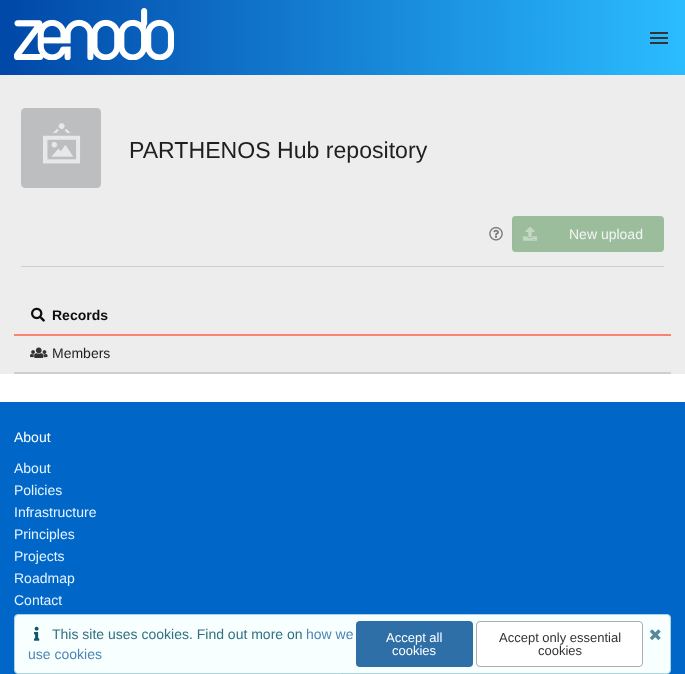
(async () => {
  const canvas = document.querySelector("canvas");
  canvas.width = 685;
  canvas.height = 674;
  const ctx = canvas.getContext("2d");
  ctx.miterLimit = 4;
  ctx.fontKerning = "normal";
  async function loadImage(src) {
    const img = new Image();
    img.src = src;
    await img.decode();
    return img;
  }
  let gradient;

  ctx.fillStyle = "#ffffff";
  ctx.fillRect(0, 0, 685, 674);
  gradient = ctx.createLinearGradient(0, 38, 685, 37);
  gradient.addColorStop(0, "#0047a8");
  gradient.addColorStop(1, "#2bbcff");
  ctx.fillStyle = gradient;
  ctx.fillRect(0, 0, 685, 75);
  ctx.drawImage(await loadImage("img/1.png"), 14, 8, 160, 52);
  for (const [x, y, w, h, color] of [
    [650, 37, 18, 2, "#333333"],
    [650, 32, 18, 2, "#333333"],
    [650, 42, 18, 2, "#333333"],
    [0, 75, 685, 299, "#ededed"],
  ]) {
    ctx.fillStyle = color;
    ctx.fillRect(x, y, w, h);
  }
  ctx.drawImage(await loadImage("img/2.png"), 21, 108, 80, 80);
  ctx.drawImage(await loadImage("img/3.png"), 489, 227, 14, 14);
  ctx.fillStyle = "#9cbd9c";
  ctx.beginPath();
  ctx.roundRect(512, 216, 152, 36, 4);
  ctx.fill();
  ctx.fillStyle = "rgba(141, 141, 141, 0.05)";
  ctx.fillRect(512, 216, 3, 36);
  ctx.drawImage(await loadImage("img/4.png"), 523, 227, 14, 14);
  for (const [x, y, w, h, color] of [
    [21, 266, 643, 1, "#cfcfcf"],
    [14, 372, 657, 2, "#cfcfcf"],
    [14, 334, 657, 2, "#fb8273"],
  ]) {
    ctx.fillStyle = color;
    ctx.fillRect(x, y, w, h);
  }
  ctx.drawImage(await loadImage("img/5.png"), 31, 307, 14, 15);
  ctx.drawImage(await loadImage("img/6.png"), 30, 347, 18, 11);
  ctx.fillStyle = "#0067c9";
  ctx.fillRect(0, 402, 685, 272);
  ctx.fillStyle = "#f8ffff";
  ctx.beginPath();
  ctx.roundRect(14.5, 614.5, 656, 59, 3.5);
  ctx.fill();
  ctx.strokeStyle = "#a9d5de";
  ctx.stroke();
  ctx.drawImage(await loadImage("img/7.png"), 34, 626, 6, 15);
  ctx.fillStyle = "#2f6fa7";
  ctx.beginPath();
  ctx.roundRect(356, 621, 117, 46, 4);
  ctx.fill();
  ctx.fillStyle = "#ffffff";
  ctx.beginPath();
  ctx.roundRect(476.5, 621.5, 166, 45, 3.5);
  ctx.fill();
  ctx.strokeStyle = "#adadad";
  ctx.stroke();
  ctx.drawImage(await loadImage("img/8.png"), 650, 629, 11, 11);
  ctx.font = "23.1px Liberation Sans";
  ctx.fillStyle = "#1f1f1f";
  ctx.fillText("PARTHENOS Hub repository", 129, 158);
  ctx.font = "14px Liberation Sans";
  ctx.fillStyle = "#f5f5f5";
  ctx.fillText("New upload", 569, 239);
  ctx.font = "bold 14px Liberation Sans";
  ctx.fillStyle = "#0c0c0c";
  ctx.fillText("Records", 52, 320);
  ctx.font = "14px Liberation Sans";
  ctx.fillStyle = "#1f1f1f";
  ctx.fillText("Members", 52, 358);
  ctx.fillStyle = "#ffffff";
  ctx.fillText("About", 14, 442);
  ctx.fillStyle = "#e5f4ff";
  for (const [text, x, y] of [
    ["About", 14, 473],
    ["Policies", 14, 495],
    ["Infrastructure", 14, 517],
    ["Principles", 14, 539],
    ["Projects", 14, 561],
    ["Roadmap", 14, 583],
    ["Contact", 14, 605],
  ]) {
    ctx.fillText(text, x, y);
  }
  ctx.fillStyle = "#317082";
  ctx.fillText("This site uses cookies. Find out more on", 52, 639);
  ctx.fillStyle = "#4d85b4";
  ctx.fillText("how we", 306, 639);
  ctx.fillText("use cookies", 28, 659);
  ctx.font = "13px Liberation Sans";
  ctx.fillStyle = "#ffffff";
  ctx.fillText("Accept all", 386, 642);
  ctx.fillText("cookies", 392, 655);
  ctx.fillStyle = "#333333";
  ctx.fillText("Accept only essential", 499, 642);
  ctx.fillText("cookies", 538, 655);
})();
